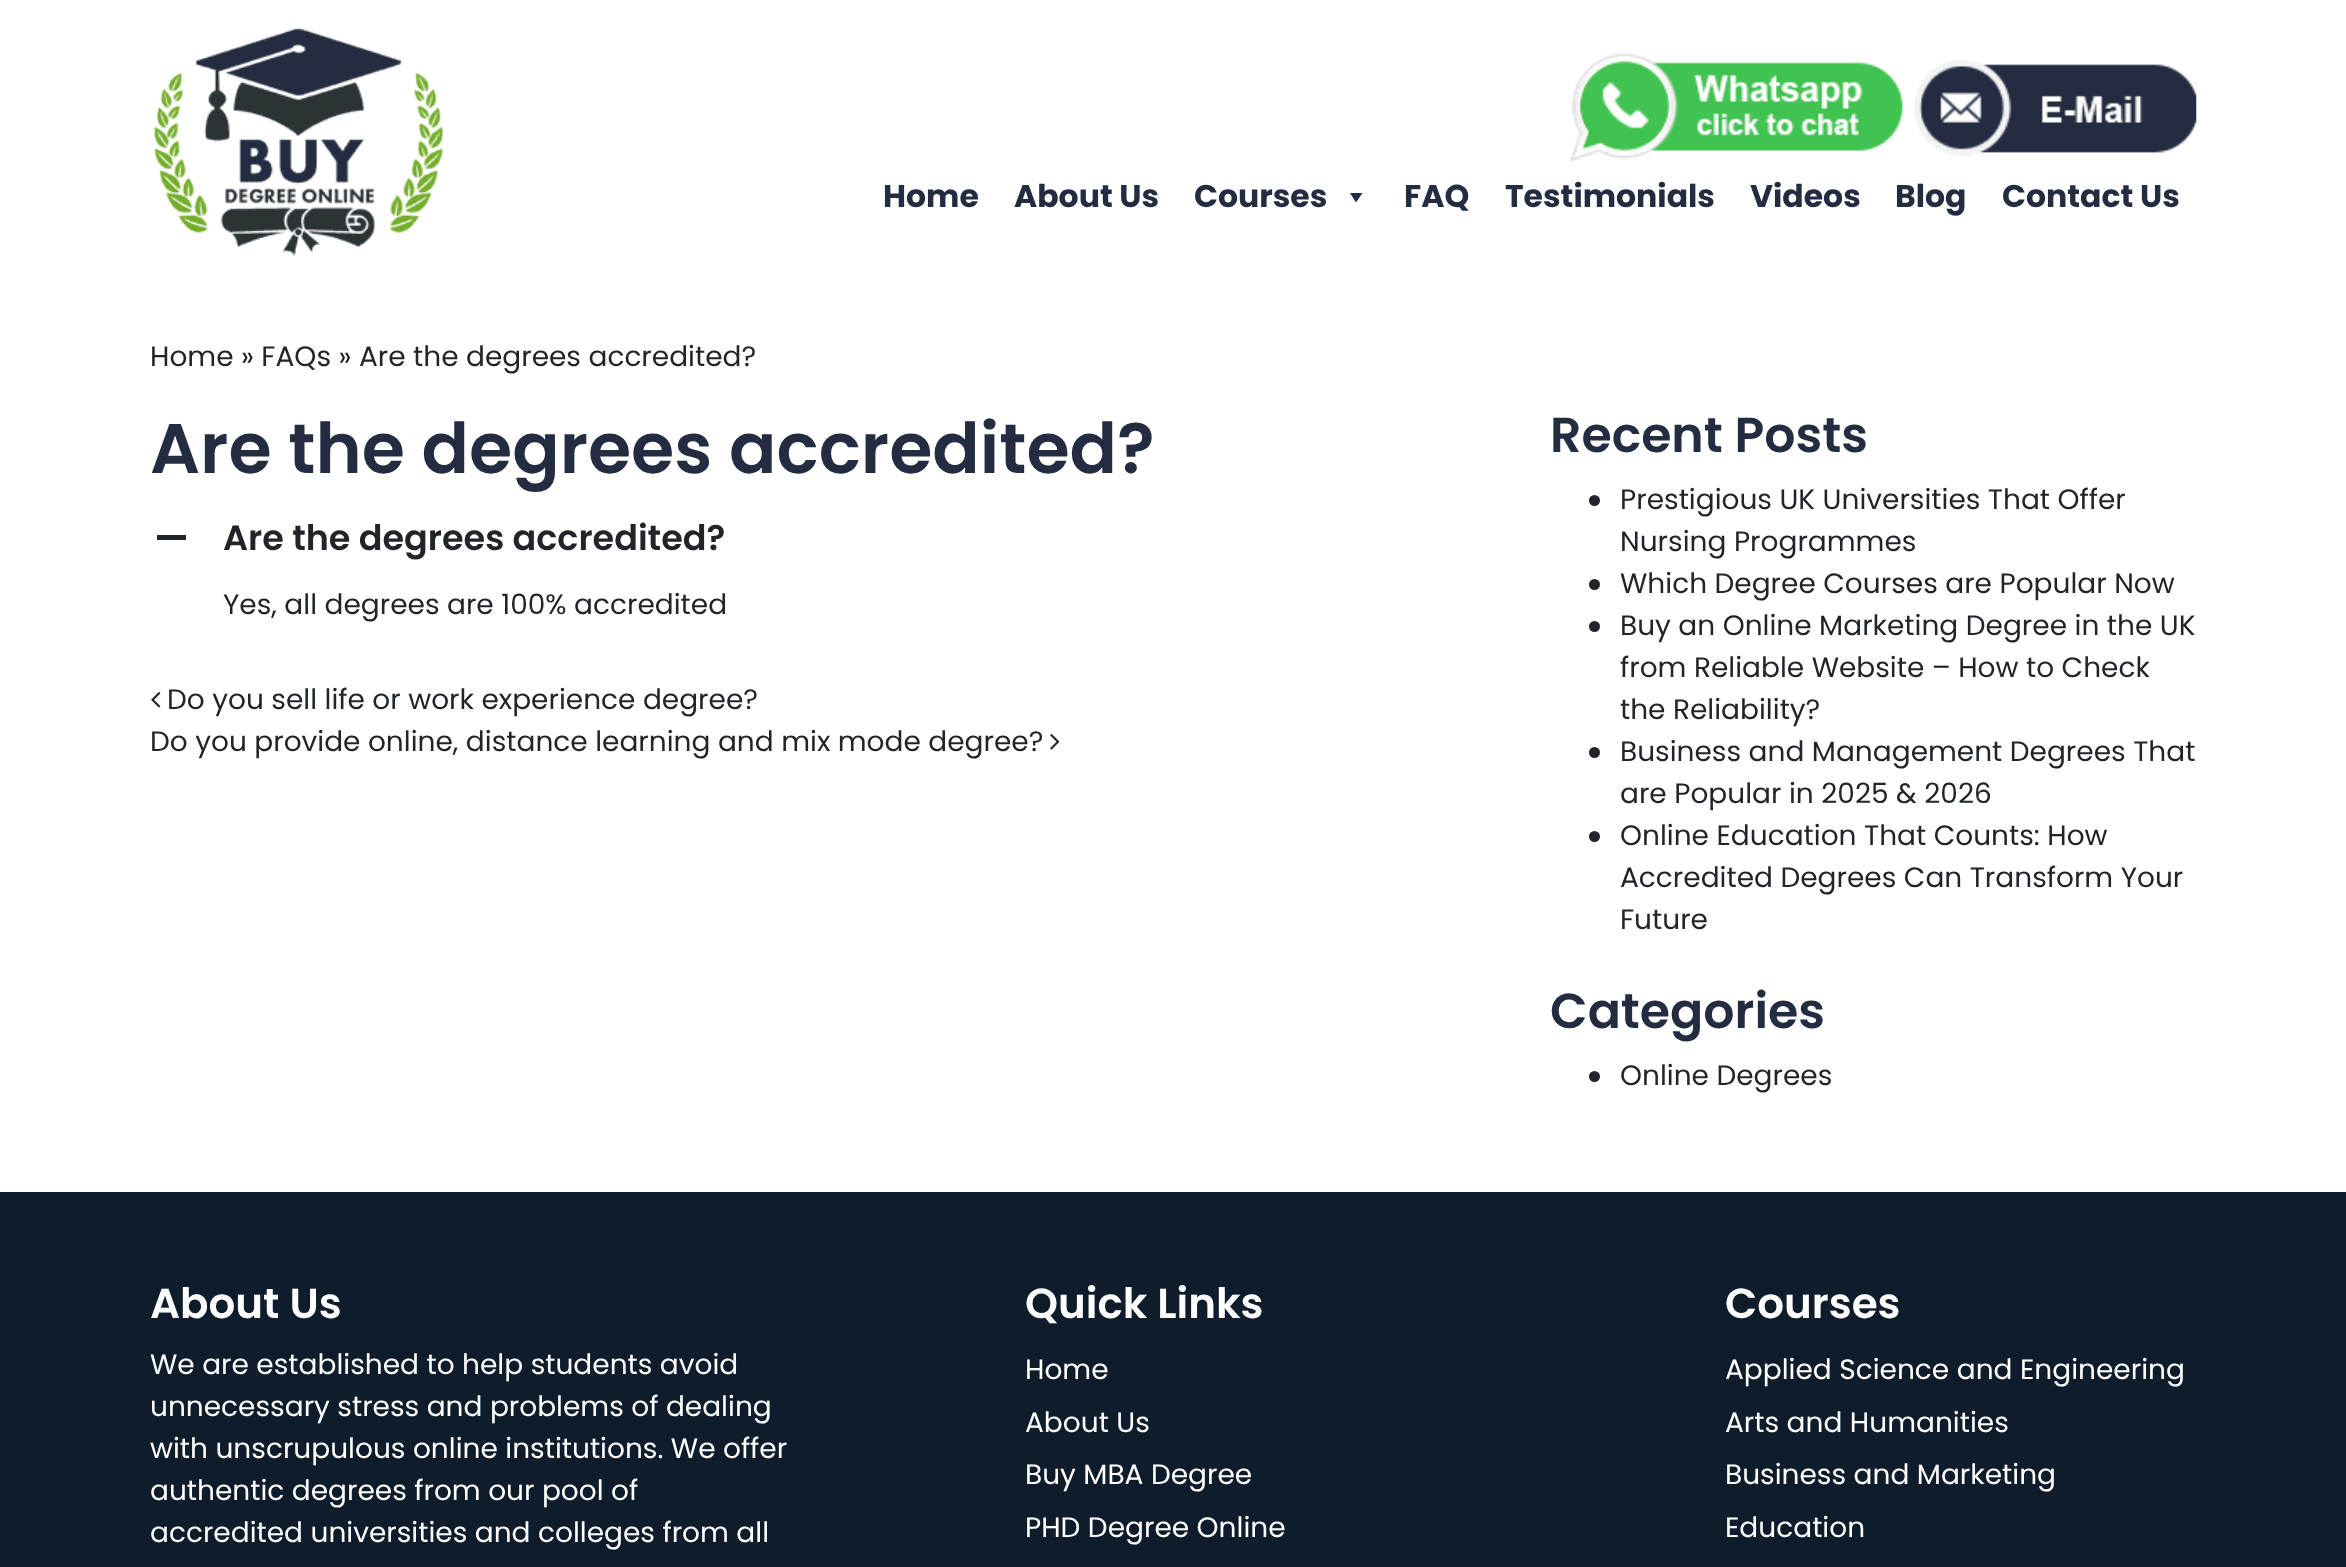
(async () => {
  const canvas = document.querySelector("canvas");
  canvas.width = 2346;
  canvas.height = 1567;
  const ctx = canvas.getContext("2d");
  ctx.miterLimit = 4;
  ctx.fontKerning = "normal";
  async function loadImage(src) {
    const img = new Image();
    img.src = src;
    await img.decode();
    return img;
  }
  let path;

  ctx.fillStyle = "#ffffff";
  ctx.fillRect(0, 0, 2346, 1567);
  ctx.drawImage(await loadImage("img/1.png"), 154, 28, 289, 228);
  ctx.drawImage(await loadImage("img/2.png"), 1569, 52, 334, 109);
  ctx.drawImage(await loadImage("img/3.png"), 1914, 59, 283, 97);
  ctx.fillStyle = "#242c42";
  path = new Path2D("M1362.5 193L1356 202.5L1350 193Z");
  ctx.fill(path);
  ctx.fillStyle = "#212529";
  ctx.fillRect(157, 535, 29, 5);
  ctx.drawImage(await loadImage("img/4.png"), 151, 692, 10, 16);
  ctx.drawImage(await loadImage("img/5.png"), 1050, 734, 10, 16);
  ctx.beginPath();
  ctx.arc(1594.5, 500.5, 5.5, 0, Math.PI * 2);
  ctx.fill();
  ctx.beginPath();
  ctx.arc(1594.5, 584.5, 5.5, 0, Math.PI * 2);
  ctx.fill();
  ctx.beginPath();
  ctx.arc(1594.5, 626.5, 5.5, 0, Math.PI * 2);
  ctx.fill();
  ctx.beginPath();
  ctx.arc(1594.5, 752.5, 5.5, 0, Math.PI * 2);
  ctx.fill();
  ctx.beginPath();
  ctx.arc(1594.5, 836.5, 5.5, 0, Math.PI * 2);
  ctx.fill();
  ctx.beginPath();
  ctx.arc(1594.5, 1076.5, 5.5, 0, Math.PI * 2);
  ctx.fill();
  ctx.fillStyle = "#0f1c2c";
  ctx.fillRect(0, 1192, 2346, 375);
  ctx.font = "bold 31.5px Poppins";
  ctx.fillStyle = "#242c42";
  for (const [text, x, y] of [
    ["Home", 883, 207],
    ["About Us", 1014, 207],
    ["Courses", 1194, 207],
    ["FAQ", 1404, 207],
    ["Testimonials", 1505, 207],
    ["Videos", 1750, 207],
    ["Blog", 1895, 207],
    ["Contact Us", 2002, 207],
  ]) {
    ctx.fillText(text, x, y);
  }
  ctx.font = "28px Poppins";
  ctx.fillStyle = "#212529";
  ctx.fillText("Home » FAQs » Are the degrees accredited?", 150, 366);
  ctx.font = "600 70px Poppins";
  ctx.fillStyle = "#242c42";
  ctx.fillText("Are the degrees accredited?", 150, 473);
  ctx.font = "600 35px Poppins";
  ctx.fillStyle = "#212529";
  ctx.fillText("Are the degrees accredited?", 223, 550);
  ctx.font = "28px Poppins";
  for (const [text, x, y] of [
    ["Yes, all degrees are 100% accredited", 223, 614],
    ["Do you sell life or work experience degree?", 167, 709],
    ["Do you provide online, distance learning and mix mode degree?", 150, 751],
  ]) {
    ctx.fillText(text, x, y);
  }
  ctx.font = "600 49px Poppins";
  ctx.fillStyle = "#242c42";
  ctx.fillText("Recent Posts", 1550, 452);
  ctx.font = "28px Poppins";
  ctx.fillStyle = "#212529";
  for (const [text, x, y] of [
    ["Prestigious UK Universities That Offer", 1620, 509],
    ["Nursing Programmes", 1620, 551],
    ["Which Degree Courses are Popular Now", 1620, 593],
    ["Buy an Online Marketing Degree in the UK", 1620, 635],
    ["from Reliable Website – How to Check", 1620, 677],
    ["the Reliability?", 1620, 719],
    ["Business and Management Degrees That", 1620, 761],
    ["are Popular in 2025 & 2026", 1620, 803],
    ["Online Education That Counts: How", 1620, 845],
    ["Accredited Degrees Can Transform Your", 1620, 887],
    ["Future", 1620, 929],
  ]) {
    ctx.fillText(text, x, y);
  }
  ctx.font = "600 49px Poppins";
  ctx.fillStyle = "#242c42";
  ctx.fillText("Categories", 1550, 1028);
  ctx.font = "28px Poppins";
  ctx.fillStyle = "#212529";
  ctx.fillText("Online Degrees", 1620, 1085);
  ctx.font = "600 42px Poppins";
  ctx.fillStyle = "#ffffff";
  ctx.fillText("About Us", 150, 1318);
  ctx.font = "28px Poppins";
  for (const [text, x, y] of [
    ["We are established to help students avoid", 150, 1374],
    ["unnecessary stress and problems of dealing", 150, 1416],
    ["with unscrupulous online institutions. We offer", 150, 1458],
    ["authentic degrees from our pool of", 150, 1500],
    ["accredited universities and colleges from all", 150, 1542],
  ]) {
    ctx.fillText(text, x, y);
  }
  ctx.font = "600 42px Poppins";
  ctx.fillText("Quick Links", 1025, 1318);
  ctx.font = "28px Poppins";
  for (const [text, x, y] of [
    ["Home", 1025, 1379],
    ["About Us", 1025, 1432],
    ["Buy MBA Degree", 1025, 1484],
    ["PHD Degree Online", 1025, 1537],
  ]) {
    ctx.fillText(text, x, y);
  }
  ctx.font = "600 42px Poppins";
  ctx.fillText("Courses", 1725, 1318);
  ctx.font = "28px Poppins";
  for (const [text, x, y] of [
    ["Applied Science and Engineering", 1725, 1379],
    ["Arts and Humanities", 1725, 1432],
    ["Business and Marketing", 1725, 1484],
    ["Education", 1725, 1537],
  ]) {
    ctx.fillText(text, x, y);
  }
})();
